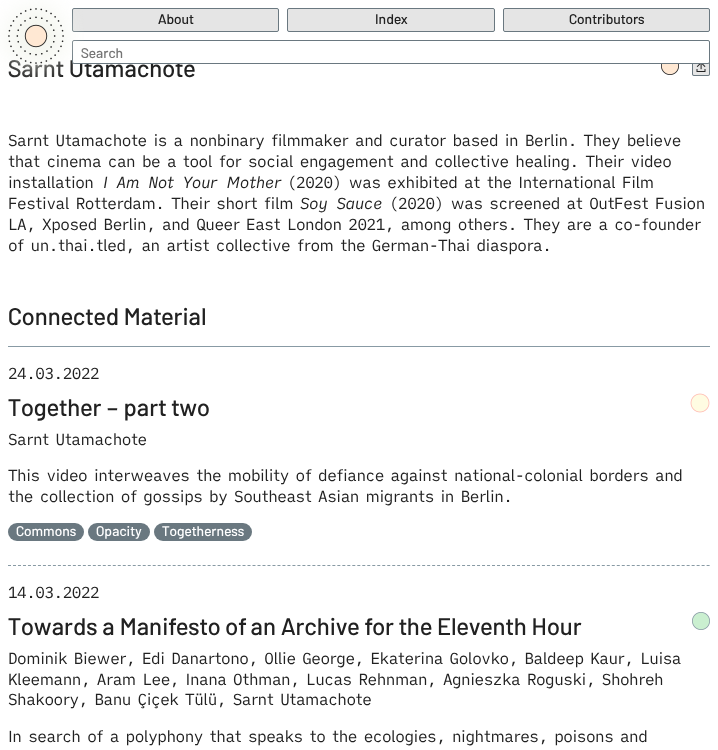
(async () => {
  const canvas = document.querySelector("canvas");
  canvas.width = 718;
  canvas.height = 750;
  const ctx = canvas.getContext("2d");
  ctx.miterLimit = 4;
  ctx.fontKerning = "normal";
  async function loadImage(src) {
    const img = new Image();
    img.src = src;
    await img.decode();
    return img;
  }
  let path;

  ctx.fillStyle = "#ffffff";
  ctx.fillRect(0, 0, 718, 750);
  ctx.fillStyle = "#e5e5e5";
  ctx.beginPath();
  ctx.roundRect(72.5, 8.5, 206, 23, 1.5);
  ctx.fill();
  ctx.strokeStyle = "#6a7880";
  ctx.stroke();
  ctx.beginPath();
  ctx.roundRect(287.5, 8.5, 207, 23, 1.5);
  ctx.fill();
  ctx.stroke();
  ctx.beginPath();
  ctx.roundRect(503.5, 8.5, 206, 23, 1.5);
  ctx.fill();
  ctx.stroke();
  ctx.drawImage(await loadImage("img/3.png"), 661, 64, 18, 11);
  ctx.drawImage(await loadImage("img/4.png"), 692, 62, 18, 14);
  ctx.fillStyle = "#889aa4";
  ctx.fillRect(8, 346, 702, 1);
  path = new Path2D("M8 565.5H710");
  ctx.strokeStyle = "#889aa4";
  ctx.setLineDash([3, 1.99]);
  ctx.stroke(path);
  ctx.drawImage(await loadImage("img/5.png"), 690, 393, 20, 20);
  ctx.fillStyle = "#6a7880";
  ctx.beginPath();
  ctx.roundRect(8, 523, 76, 18, 9);
  ctx.fill();
  ctx.beginPath();
  ctx.roundRect(88, 523, 62, 18, 9);
  ctx.fill();
  ctx.beginPath();
  ctx.roundRect(154, 523, 98, 18, 9);
  ctx.fill();
  ctx.drawImage(await loadImage("img/6.png"), 692, 612, 18, 18);
  ctx.font = "500 14px Barlow";
  ctx.fillStyle = "#212121";
  for (const [text, x, y] of [
    ["About", 158, 24],
    ["Index", 375, 24],
    ["Contributors", 569, 24],
  ]) {
    ctx.fillText(text, x, y);
  }
  ctx.font = "500 24px Barlow";
  ctx.fillText("Sarnt Utamachote", 8, 77);
  ctx.fillStyle = "#ffffff";
  ctx.beginPath();
  ctx.roundRect(72.5, 40.5, 637, 23, 1.5);
  ctx.fill();
  ctx.strokeStyle = "#6a7880";
  ctx.setLineDash([]);
  ctx.stroke();
  ctx.font = "500 14px Barlow";
  ctx.fillStyle = "#757575";
  ctx.fillText("Search", 81, 58);
  ctx.drawImage(await loadImage("img/1.png"), 0, 0, 84, 77);
  ctx.drawImage(await loadImage("img/2.png"), 8, 8, 56, 56);
  ctx.letterSpacing = "-0.48px";
  ctx.font = "16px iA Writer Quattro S";
  ctx.fillStyle = "#212121";
  for (const [text, x, y] of [
    ["Sarnt Utamachote is a nonbinary filmmaker and curator based in Berlin. They believe", 8, 146],
    ["that cinema can be a tool for social engagement and collective healing. Their video", 8, 167],
    ["installation", 8, 188],
  ]) {
    ctx.fillText(text, x, y);
  }
  ctx.font = "italic 16px iA Writer Quattro S";
  ctx.fillText("I Am Not Your Mother", 103, 188);
  ctx.font = "16px iA Writer Quattro S";
  ctx.fillText("(2020) was exhibited at the International Film", 287, 188);
  ctx.fillText("Festival Rotterdam. Their short film", 8, 209);
  ctx.font = "italic 16px iA Writer Quattro S";
  ctx.fillText("Soy Sauce", 300, 209);
  ctx.font = "16px iA Writer Quattro S";
  for (const [text, x, y] of [
    ["(2020) was screened at OutFest Fusion", 389, 209],
    ["LA, Xposed Berlin, and Queer East London 2021, among others. They are a co-founder", 8, 230],
    ["of un.thai.tled, an artist collective from the German-Thai diaspora.", 8, 251],
  ]) {
    ctx.fillText(text, x, y);
  }
  ctx.letterSpacing = "0px";
  ctx.font = "500 24px Barlow";
  ctx.fillText("Connected Material", 8, 325);
  ctx.letterSpacing = "-0.48px";
  ctx.font = "16px iA Writer Quattro S";
  ctx.fillText("24.03.2022", 8, 379);
  ctx.letterSpacing = "0px";
  ctx.font = "500 24px Barlow";
  ctx.fillText("Together – part two", 8, 416);
  ctx.letterSpacing = "-0.48px";
  ctx.font = "16px iA Writer Quattro S";
  for (const [text, x, y] of [
    ["Sarnt Utamachote", 8, 445],
    ["This video interweaves the mobility of defiance against national-colonial borders and", 8, 481],
    ["the collection of gossips by Southeast Asian migrants in Berlin.", 8, 502],
  ]) {
    ctx.fillText(text, x, y);
  }
  ctx.letterSpacing = "0px";
  ctx.font = "500 14px Barlow";
  ctx.fillStyle = "#ffffff";
  for (const [text, x, y] of [
    ["Commons", 16, 536],
    ["Opacity", 96, 536],
    ["Togetherness", 162, 536],
  ]) {
    ctx.fillText(text, x, y);
  }
  ctx.letterSpacing = "-0.48px";
  ctx.font = "16px iA Writer Quattro S";
  ctx.fillStyle = "#212121";
  ctx.fillText("14.03.2022", 8, 598);
  ctx.letterSpacing = "0px";
  ctx.font = "500 24px Barlow";
  ctx.fillText("Towards a Manifesto of an Archive for the Eleventh Hour", 8, 635);
  ctx.letterSpacing = "-0.48px";
  ctx.font = "16px iA Writer Quattro S";
  for (const [text, x, y] of [
    ["Dominik Biewer, Edi Danartono, Ollie George, Ekaterina Golovko, Baldeep Kaur, Luisa", 8, 664],
    ["Kleemann, Aram Lee, Inana Othman, Lucas Rehnman, Agnieszka Roguski, Shohreh", 8, 685],
    ["Shakoory, Banu Çiçek Tülü, Sarnt Utamachote", 8, 705],
    ["In search of a polyphony that speaks to the ecologies, nightmares, poisons and", 8, 742],
  ]) {
    ctx.fillText(text, x, y);
  }
})();
